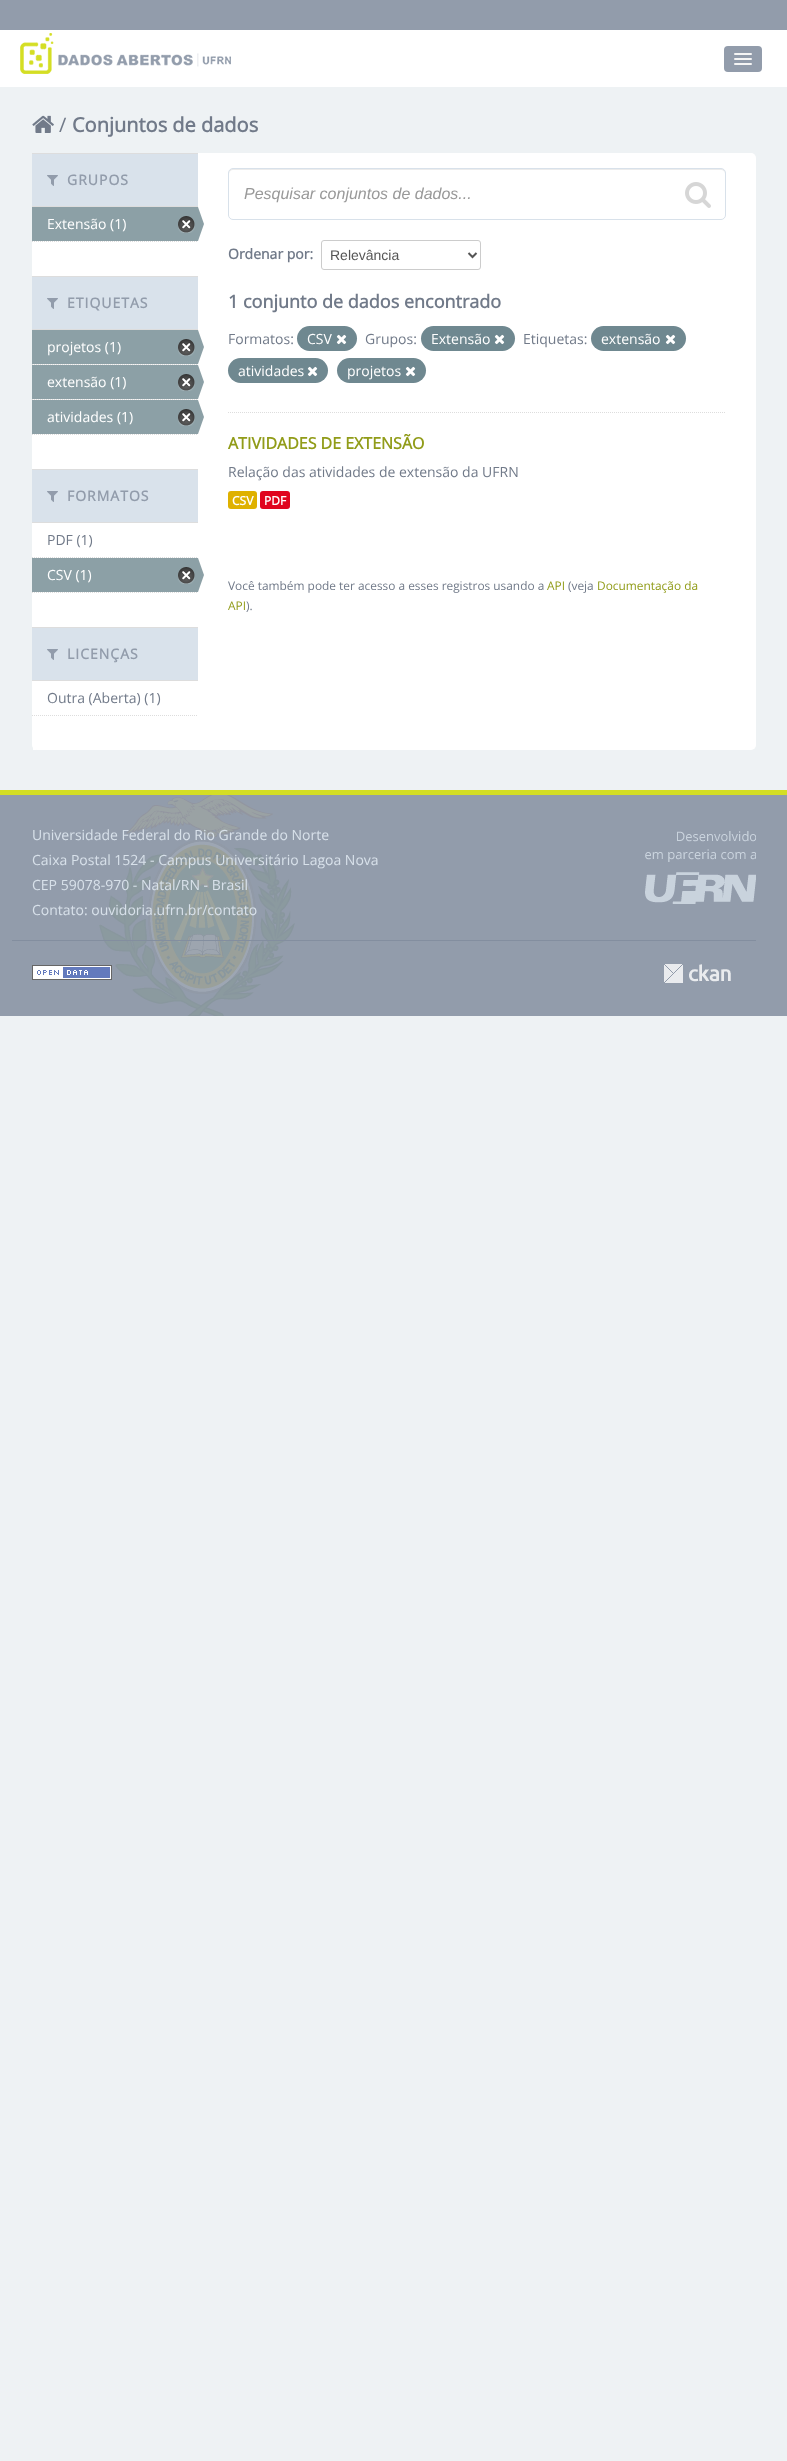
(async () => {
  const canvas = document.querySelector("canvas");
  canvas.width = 787;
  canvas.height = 2461;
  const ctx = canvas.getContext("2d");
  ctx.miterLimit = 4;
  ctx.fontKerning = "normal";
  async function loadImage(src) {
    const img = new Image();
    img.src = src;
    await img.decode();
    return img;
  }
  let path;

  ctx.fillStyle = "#eef2f4";
  ctx.fillRect(0, 0, 787, 2461);
  ctx.fillStyle = "#929cab";
  ctx.fillRect(0, 0, 787, 30);
  ctx.fillStyle = "#ffffff";
  ctx.fillRect(0, 30, 787, 57);
  ctx.drawImage(await loadImage("img/1.png"), 20, 33, 211, 41);
  ctx.fillStyle = "#929cab";
  ctx.beginPath();
  ctx.roundRect(724, 46, 38, 26, 4);
  ctx.fill();
  ctx.fillStyle = "#f5f5f5";
  ctx.beginPath();
  ctx.roundRect(734, 53, 18, 2, 1);
  ctx.fill();
  ctx.beginPath();
  ctx.roundRect(734, 58, 18, 2, 1);
  ctx.fill();
  ctx.beginPath();
  ctx.roundRect(734, 63, 18, 2, 1);
  ctx.fill();
  ctx.drawImage(await loadImage("img/2.png"), 32, 115, 22, 18);
  ctx.fillStyle = "#ffffff";
  ctx.beginPath();
  ctx.roundRect(32, 153, 724, 597, 5);
  ctx.fill();
  for (const [x, y, w, h, color] of [
    [33, 153, 3, 597, "#ffffff"],
    [32, 154, 166, 52, "#d9e2eb"],
    [32, 153, 166, 1, "#dddddd"],
    [32, 206, 166, 1, "#dddddd"],
  ]) {
    ctx.fillStyle = color;
    ctx.fillRect(x, y, w, h);
  }
  ctx.drawImage(await loadImage("img/3.png"), 47, 175, 11, 11);
  ctx.fillStyle = "#8ca0a6";
  ctx.fillRect(32, 207, 166, 34);
  ctx.drawImage(await loadImage("img/4.png"), 178, 216, 17, 17);
  ctx.drawImage(await loadImage("img/5.png"), 198, 207, 6, 34);
  path = new Path2D("M32 241.5H198");
  ctx.strokeStyle = "#dddddd";
  ctx.setLineDash([1, 1]);
  ctx.stroke(path);
  for (const [x, y, w, h, color] of [
    [32, 277, 166, 52, "#d9e2eb"],
    [32, 276, 166, 1, "#dddddd"],
    [32, 329, 166, 1, "#dddddd"],
  ]) {
    ctx.fillStyle = color;
    ctx.fillRect(x, y, w, h);
  }
  ctx.drawImage(await loadImage("img/3.png"), 47, 298, 11, 11);
  ctx.fillStyle = "#f6f6f6";
  ctx.fillRect(33, 364, 165, 1);
  path = new Path2D("M32 364.5H198");
  ctx.stroke(path);
  ctx.fillStyle = "#8ca0a6";
  ctx.fillRect(32, 330, 166, 34);
  ctx.drawImage(await loadImage("img/4.png"), 178, 339, 17, 17);
  ctx.drawImage(await loadImage("img/5.png"), 198, 330, 6, 34);
  ctx.fillStyle = "#f6f6f6";
  ctx.fillRect(33, 399, 165, 1);
  path = new Path2D("M32 399.5H198");
  ctx.stroke(path);
  ctx.fillStyle = "#8ca0a6";
  ctx.fillRect(32, 365, 166, 34);
  ctx.drawImage(await loadImage("img/4.png"), 178, 374, 17, 17);
  ctx.drawImage(await loadImage("img/5.png"), 198, 365, 6, 34);
  ctx.fillRect(32, 400, 166, 34);
  ctx.drawImage(await loadImage("img/4.png"), 178, 409, 17, 17);
  ctx.drawImage(await loadImage("img/5.png"), 198, 400, 6, 34);
  path = new Path2D("M32 434.5H198");
  ctx.stroke(path);
  for (const [x, y, w, h, color] of [
    [32, 470, 166, 52, "#d9e2eb"],
    [32, 469, 166, 1, "#dddddd"],
    [32, 522, 166, 1, "#dddddd"],
  ]) {
    ctx.fillStyle = color;
    ctx.fillRect(x, y, w, h);
  }
  ctx.drawImage(await loadImage("img/3.png"), 47, 491, 11, 11);
  path = new Path2D("M32 557.5H198");
  ctx.stroke(path);
  ctx.fillStyle = "#8ca0a6";
  ctx.fillRect(32, 558, 166, 34);
  ctx.drawImage(await loadImage("img/4.png"), 178, 567, 17, 17);
  ctx.drawImage(await loadImage("img/5.png"), 198, 558, 6, 34);
  path = new Path2D("M32 592.5H198");
  ctx.stroke(path);
  for (const [x, y, w, h, color] of [
    [32, 628, 166, 52, "#d9e2eb"],
    [32, 627, 166, 1, "#dddddd"],
    [32, 680, 166, 1, "#dddddd"],
  ]) {
    ctx.fillStyle = color;
    ctx.fillRect(x, y, w, h);
  }
  ctx.drawImage(await loadImage("img/3.png"), 47, 649, 11, 11);
  path = new Path2D("M32 715.5H198");
  ctx.stroke(path);
  path = new Path2D("M228 412.5H726");
  ctx.stroke(path);
  ctx.fillStyle = "#ececec";
  path = new Path2D("M233 170H721C723 170 725 172 725 174C725 171 724 169 721 169H233C230 169 229 171 229 174C229 172 231 170 233 170Z");
  ctx.fill(path);
  ctx.beginPath();
  ctx.roundRect(228.5, 168.5, 497, 51, 4.5);
  ctx.strokeStyle = "#d8e1ea";
  ctx.setLineDash([]);
  ctx.stroke();
  ctx.drawImage(await loadImage("img/6.png"), 685, 182, 26, 26);
  ctx.beginPath();
  ctx.roundRect(321.5, 240.5, 159, 29, 2.5);
  ctx.strokeStyle = "#cccccc";
  ctx.stroke();
  path = new Path2D("M468.5 253L472.5 257L476.5 253");
  ctx.strokeStyle = "#555555";
  ctx.lineWidth = 2;
  ctx.stroke(path);
  ctx.fillStyle = "#6f8890";
  ctx.beginPath();
  ctx.roundRect(297, 326, 60, 25, 12.5);
  ctx.fill();
  ctx.drawImage(await loadImage("img/7.png"), 336, 334, 11, 11);
  ctx.beginPath();
  ctx.roundRect(421, 326, 94, 25, 12.5);
  ctx.fill();
  ctx.drawImage(await loadImage("img/7.png"), 494, 334, 11, 11);
  ctx.beginPath();
  ctx.roundRect(591, 326, 95, 25, 12.5);
  ctx.fill();
  ctx.drawImage(await loadImage("img/7.png"), 665, 334, 11, 11);
  ctx.beginPath();
  ctx.roundRect(228, 358, 100, 25, 12.5);
  ctx.fill();
  ctx.drawImage(await loadImage("img/7.png"), 307, 366, 11, 11);
  ctx.beginPath();
  ctx.roundRect(337, 358, 89, 25, 12.5);
  ctx.fill();
  ctx.drawImage(await loadImage("img/7.png"), 405, 366, 11, 11);
  ctx.fillStyle = "#dfb100";
  ctx.beginPath();
  ctx.roundRect(228, 491, 29, 18, 3);
  ctx.fill();
  ctx.fillStyle = "#e0051e";
  ctx.beginPath();
  ctx.roundRect(260, 491, 30, 18, 3);
  ctx.fill();
  ctx.fillStyle = "#929cab";
  ctx.fillRect(0, 795, 787, 221);
  ctx.fillStyle = "#d4de24";
  ctx.fillRect(0, 790, 787, 5);
  ctx.drawImage(await loadImage("img/8.png"), 99, 795, 196, 221);
  ctx.drawImage(await loadImage("img/9.png"), 645, 831, 111, 73);
  ctx.fillStyle = "#838e9f";
  ctx.fillRect(12, 940, 744, 1);
  ctx.drawImage(await loadImage("img/10.png"), 32, 965, 80, 15);
  ctx.drawImage(await loadImage("img/11.png"), 664, 964, 67, 19);
  ctx.font = "20px Open Sans";
  ctx.fillStyle = "#717a89";
  ctx.fillText("/", 59, 132);
  ctx.font = "bold 20px Open Sans";
  ctx.fillText("Conjuntos de dados", 72, 132);
  ctx.letterSpacing = "1px";
  ctx.font = "bold 14px Open Sans";
  ctx.fillStyle = "#929cab";
  ctx.fillText("GRUPOS", 67, 185);
  ctx.letterSpacing = "0px";
  ctx.font = "14px Open Sans";
  ctx.fillStyle = "#ffffff";
  ctx.fillText("Extensão (1)", 47, 229);
  ctx.letterSpacing = "1px";
  ctx.font = "bold 14px Open Sans";
  ctx.fillStyle = "#929cab";
  ctx.fillText("ETIQUETAS", 67, 308);
  ctx.letterSpacing = "0px";
  ctx.font = "14px Open Sans";
  ctx.fillStyle = "#ffffff";
  for (const [text, x, y] of [
    ["projetos (1)", 47, 352],
    ["extensão (1)", 47, 387],
    ["atividades (1)", 47, 422],
  ]) {
    ctx.fillText(text, x, y);
  }
  ctx.letterSpacing = "1px";
  ctx.font = "bold 14px Open Sans";
  ctx.fillStyle = "#929cab";
  ctx.fillText("FORMATOS", 67, 501);
  ctx.letterSpacing = "0px";
  ctx.font = "14px Open Sans";
  ctx.fillStyle = "#717a89";
  ctx.fillText("PDF (1)", 47, 545);
  ctx.fillStyle = "#ffffff";
  ctx.fillText("CSV (1)", 47, 580);
  ctx.letterSpacing = "1px";
  ctx.font = "bold 14px Open Sans";
  ctx.fillStyle = "#929cab";
  ctx.fillText("LICENÇAS", 67, 659);
  ctx.letterSpacing = "0px";
  ctx.font = "14px Open Sans";
  ctx.fillStyle = "#717a89";
  ctx.fillText("Outra (Aberta) (1)", 47, 703);
  ctx.font = "italic 16px Liberation Sans";
  ctx.fillStyle = "#999999";
  ctx.fillText("Pesquisar conjuntos de dados...", 244, 199);
  ctx.font = "bold 14px Open Sans";
  ctx.fillStyle = "#717a89";
  ctx.fillText("Ordenar por:", 228, 259);
  ctx.font = "14px Liberation Sans";
  ctx.fillStyle = "#555555";
  ctx.fillText("Relevância", 330, 260);
  ctx.font = "bold 18px Open Sans";
  ctx.fillStyle = "#717a89";
  ctx.fillText("1 conjunto de dados encontrado", 228, 308);
  ctx.font = "14px Open Sans";
  ctx.fillText("Formatos:", 228, 344);
  ctx.fillStyle = "#ffffff";
  ctx.fillText("CSV", 307, 344);
  ctx.fillStyle = "#717a89";
  ctx.fillText("Grupos:", 365, 344);
  ctx.fillStyle = "#ffffff";
  ctx.fillText("Extensão", 431, 344);
  ctx.fillStyle = "#717a89";
  ctx.fillText("Etiquetas:", 523, 344);
  ctx.fillStyle = "#ffffff";
  for (const [text, x, y] of [
    ["extensão", 601, 344],
    ["atividades", 238, 376],
    ["projetos", 347, 376],
  ]) {
    ctx.fillText(text, x, y);
  }
  ctx.font = "bold 16px Open Sans";
  ctx.fillStyle = "#919c19";
  ctx.fillText("ATIVIDADES DE EXTENSÃO", 228, 449);
  ctx.font = "14px Open Sans";
  ctx.fillStyle = "#717a89";
  ctx.fillText("Relação das atividades de extensão da UFRN", 228, 477);
  ctx.font = "bold 12px Open Sans";
  ctx.fillStyle = "#ffffff";
  ctx.fillText("CSV", 232, 505);
  ctx.fillText("PDF", 264, 505);
  ctx.font = "11.9px Open Sans";
  ctx.fillStyle = "#717a89";
  ctx.fillText("Você também pode ter acesso a esses registros usando a", 228, 590);
  ctx.fillStyle = "#919c19";
  ctx.fillText("API", 547, 590);
  ctx.fillStyle = "#717a89";
  ctx.fillText("(veja", 568, 590);
  ctx.fillStyle = "#919c19";
  ctx.fillText("Documentação da", 597, 590);
  ctx.fillText("API", 228, 610);
  ctx.fillStyle = "#717a89";
  ctx.fillText(").", 246, 610);
  ctx.font = "14px Open Sans";
  ctx.fillStyle = "#d8e1ea";
  for (const [text, x, y] of [
    ["Universidade Federal do Rio Grande do Norte", 32, 840],
    ["Caixa Postal 1524 - Campus Universitário Lagoa Nova", 32, 865],
    ["CEP 59078-970 - Natal/RN - Brasil", 32, 890],
    ["Contato: ouvidoria.ufrn.br/contato", 32, 915],
  ]) {
    ctx.fillText(text, x, y);
  }
})();
